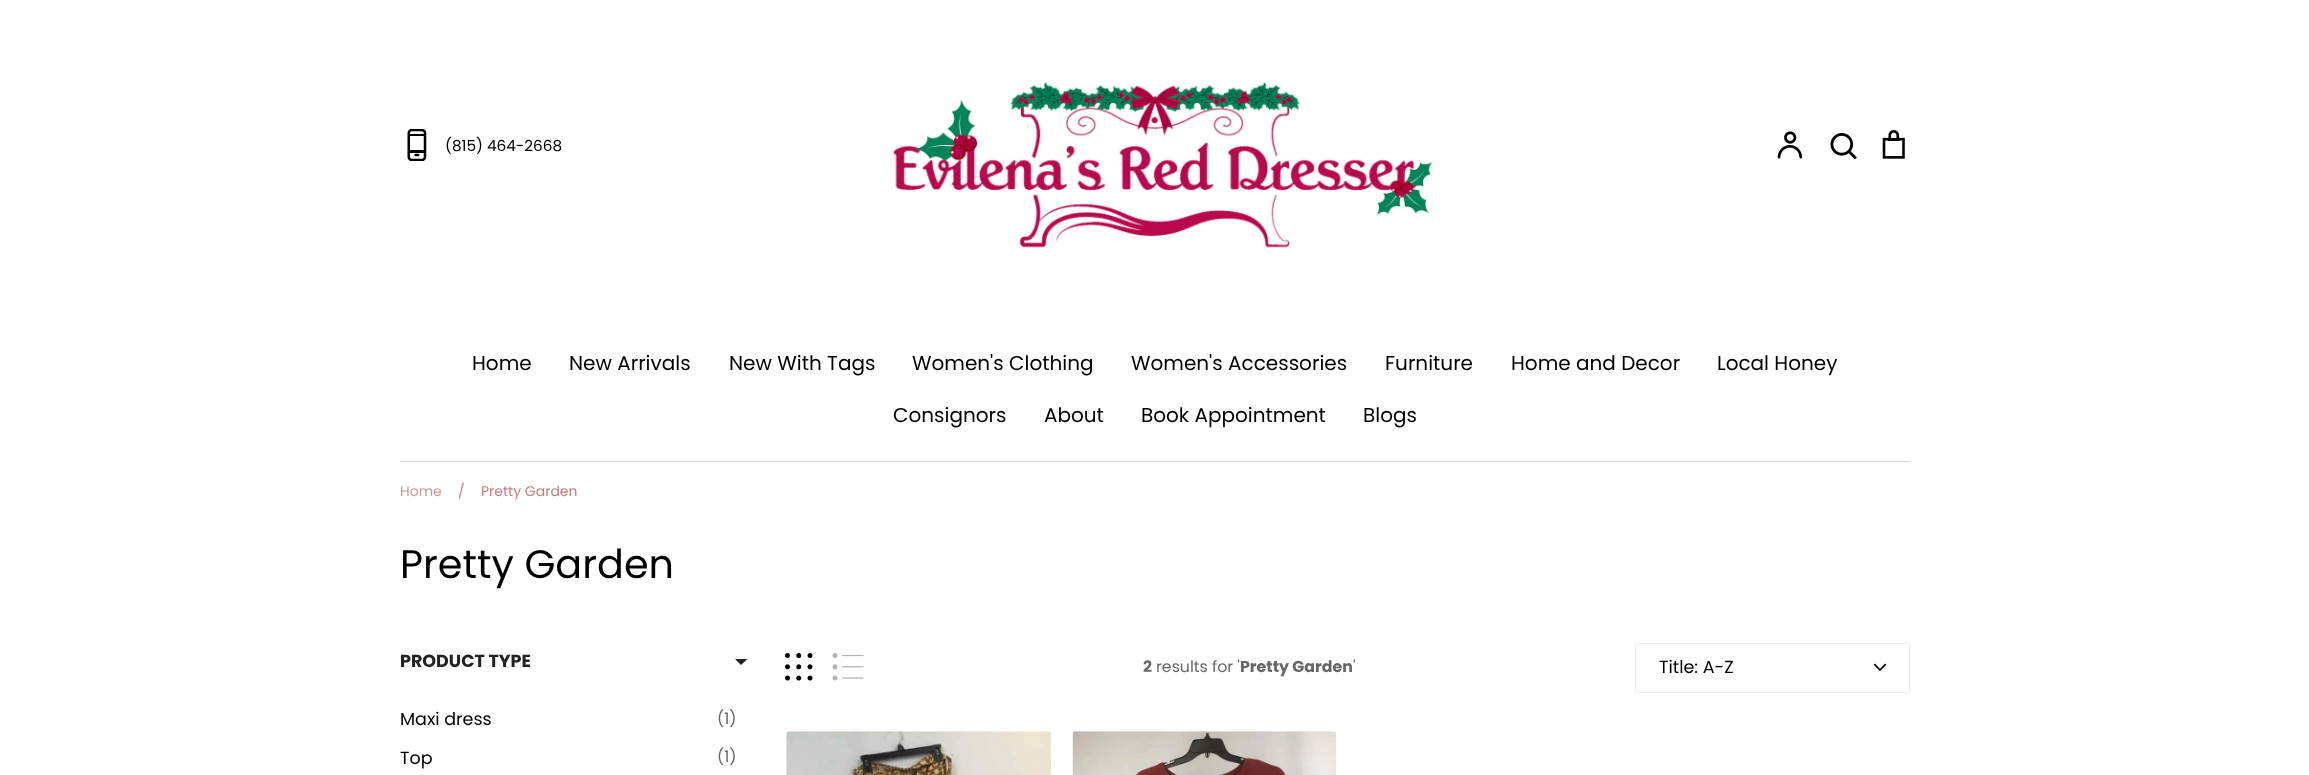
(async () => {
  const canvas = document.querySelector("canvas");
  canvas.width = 2309;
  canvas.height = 775;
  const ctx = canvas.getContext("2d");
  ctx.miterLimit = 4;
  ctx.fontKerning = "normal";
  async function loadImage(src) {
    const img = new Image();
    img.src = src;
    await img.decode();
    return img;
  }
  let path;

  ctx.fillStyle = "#ffffff";
  ctx.fillRect(0, 0, 2309, 775);
  ctx.drawImage(await loadImage("img/1.png"), 407, 129, 20, 32);
  ctx.drawImage(await loadImage("img/2.png"), 893, 81, 540, 168);
  ctx.drawImage(await loadImage("img/3.png"), 1777, 131, 26, 28);
  ctx.drawImage(await loadImage("img/4.png"), 1830, 133, 27, 27);
  ctx.drawImage(await loadImage("img/5.png"), 1882, 130, 23, 29);
  ctx.fillStyle = "#d9d9d9";
  ctx.fillRect(400, 461, 1510, 1);
  ctx.fillStyle = "#222222";
  path = new Path2D("M735 659H747.5L741 665Z");
  ctx.fill(path);
  ctx.drawImage(await loadImage("img/6.png"), 785, 653, 28, 28);
  ctx.drawImage(await loadImage("img/7.png"), 832, 653, 32, 28);
  ctx.strokeStyle = "#ededed";
  ctx.strokeRect(1635.5, 643.5, 274, 49);
  ctx.drawImage(await loadImage("img/8.png"), 1873, 663, 14, 8);
  ctx.drawImage(await loadImage("img/9.png"), 786, 731, 265, 44);
  ctx.drawImage(await loadImage("img/10.png"), 1072, 731, 264, 44);
  ctx.font = "15.25px Poppins";
  ctx.fillStyle = "#000000";
  ctx.fillText("(815) 464-2668", 445, 151);
  ctx.font = "20px Poppins";
  for (const [text, x, y] of [
    ["Home", 472, 370],
    ["New Arrivals", 569, 370],
    ["New With Tags", 729, 370],
    ["Women's Clothing", 912, 370],
    ["Women's Accessories", 1131, 370],
    ["Furniture", 1385, 370],
    ["Home and Decor", 1511, 370],
    ["Local Honey", 1717, 370],
    ["Consignors", 893, 422],
    ["About", 1044, 422],
    ["Book Appointment", 1141, 422],
    ["Blogs", 1363, 422],
  ]) {
    ctx.fillText(text, x, y);
  }
  ctx.font = "14px Poppins";
  ctx.fillStyle = "#d29895";
  ctx.fillText("Home", 400, 496);
  ctx.fillStyle = "#c77e7a";
  ctx.fillText("/", 458, 496);
  ctx.fillText("Pretty Garden", 481, 496);
  ctx.font = "39.75px Poppins";
  ctx.fillStyle = "#000000";
  ctx.fillText("Pretty Garden", 400, 578);
  ctx.font = "bold 17.5px Poppins";
  ctx.fillStyle = "#222222";
  ctx.fillText("PRODUCT TYPE", 400, 667);
  ctx.font = "17.5px Poppins";
  ctx.fillStyle = "#000000";
  ctx.fillText("Maxi dress", 400, 725);
  ctx.font = "15.75px Poppins";
  ctx.fillStyle = "#666666";
  ctx.fillText("(1)", 717, 724);
  ctx.font = "17.5px Poppins";
  ctx.fillStyle = "#000000";
  ctx.fillText("Top", 400, 764);
  ctx.font = "15.75px Poppins";
  ctx.fillStyle = "#666666";
  ctx.fillText("(1)", 717, 762);
  ctx.font = "bold 15.75px Poppins";
  ctx.fillText("2", 1143, 672);
  ctx.font = "15.75px Poppins";
  ctx.fillText("results for '", 1156, 672);
  ctx.font = "bold 15.75px Poppins";
  ctx.fillText("Pretty Garden", 1240, 672);
  ctx.font = "15.75px Poppins";
  ctx.fillText("'", 1353, 672);
  ctx.font = "17.5px Poppins";
  ctx.fillStyle = "#000000";
  ctx.fillText("Title: A-Z", 1659, 673);
})();
